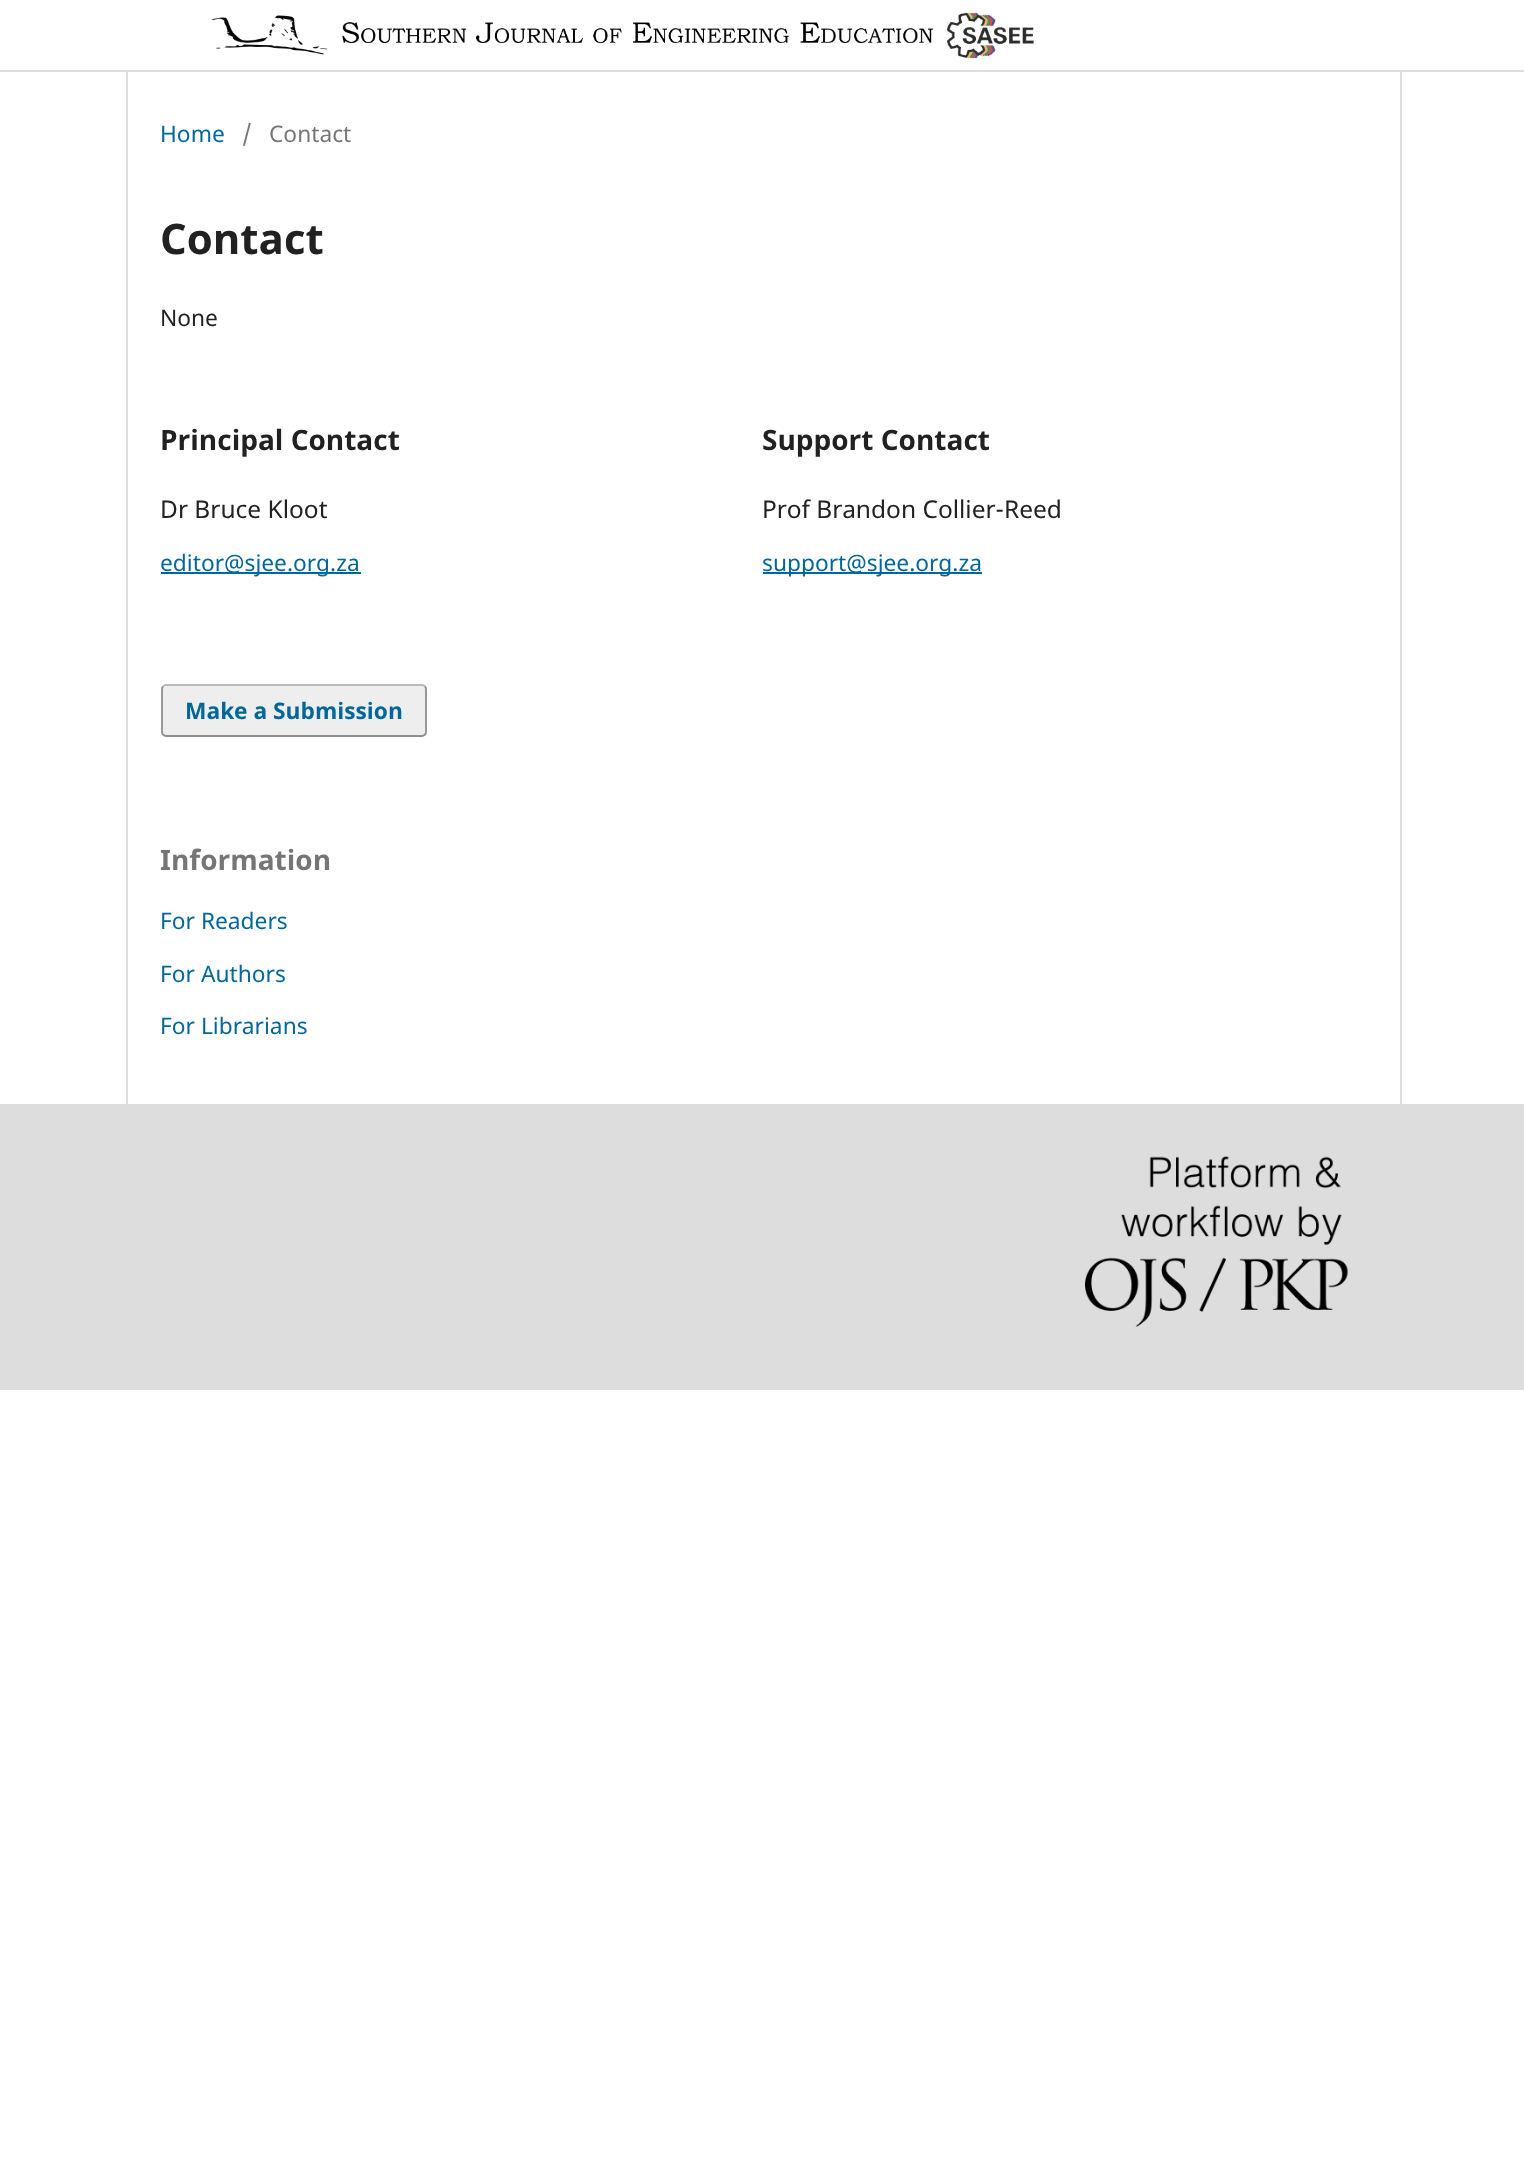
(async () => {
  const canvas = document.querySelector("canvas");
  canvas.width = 1524;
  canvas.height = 2184;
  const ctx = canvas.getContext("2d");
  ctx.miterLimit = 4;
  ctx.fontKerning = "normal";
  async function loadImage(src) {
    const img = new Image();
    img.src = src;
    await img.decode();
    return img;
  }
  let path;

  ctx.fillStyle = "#ffffff";
  ctx.fillRect(0, 0, 1524, 2184);
  ctx.fillStyle = "#dddddd";
  ctx.fillRect(0, 70, 1524, 2);
  ctx.drawImage(await loadImage("img/1.png"), 211, 9, 823, 50);
  for (const [x, y, w, h, color] of [
    [126, 72, 2, 1032, "#dddddd"],
    [161, 572, 200, 2, "#006798"],
    [763, 572, 219, 2, "#006798"],
    [1400, 72, 2, 1032, "#dddddd"],
  ]) {
    ctx.fillStyle = color;
    ctx.fillRect(x, y, w, h);
  }
  ctx.fillStyle = "#eeeeee";
  ctx.beginPath();
  ctx.roundRect(161, 684, 266, 53, 5);
  ctx.fill();
  path = new Path2D("M163 686.5C164 685.5 165 685 166 685H422C423 685 424 685.5 425 686.5");
  ctx.strokeStyle = "#bbbbbb";
  ctx.lineWidth = 1.8;
  ctx.stroke(path);
  path = new Path2D("M425 686.5C425.5 687 426 688.5 426 689.5V731.5C426 732.5 425.5 734 425 734.5C424 735.5 423 736 422 736H166C165 736 164 735.5 163 734.5C162.5 734 162 732.5 162 731.5V689.5C162 688.5 162.5 687 163 686.5");
  ctx.strokeStyle = "rgba(0, 0, 0, 0.4)";
  ctx.stroke(path);
  ctx.fillStyle = "#dddddd";
  ctx.fillRect(0, 1104, 1524, 286);
  ctx.drawImage(await loadImage("img/2.png"), 1085, 1156, 263, 171);
  ctx.font = "22.75px Noto Sans";
  ctx.fillStyle = "#006798";
  ctx.fillText("Home", 160, 142);
  ctx.fillStyle = "#757575";
  ctx.fillText("/", 242, 142);
  ctx.fillText("Contact", 269, 142);
  ctx.font = "bold 42px Noto Sans";
  ctx.fillStyle = "#212121";
  ctx.fillText("Contact", 160, 254);
  ctx.font = "22.75px Noto Sans";
  ctx.fillText("None", 160, 326);
  ctx.font = "bold 28px Noto Sans";
  ctx.fillText("Principal Contact", 160, 450);
  ctx.font = "24.5px Noto Sans";
  ctx.fillText("Dr Bruce Kloot", 160, 518);
  ctx.font = "22.75px Noto Sans";
  ctx.fillStyle = "#006798";
  ctx.fillText("editor@sjee.org.za", 160, 571);
  ctx.font = "bold 28px Noto Sans";
  ctx.fillStyle = "#212121";
  ctx.fillText("Support Contact", 762, 450);
  ctx.font = "24.5px Noto Sans";
  ctx.fillText("Prof Brandon Collier-Reed", 762, 518);
  ctx.font = "22.75px Noto Sans";
  ctx.fillStyle = "#006798";
  ctx.fillText("support@sjee.org.za", 762, 571);
  ctx.font = "bold 22.75px Noto Sans";
  ctx.fillText("Make a Submission", 185, 719);
  ctx.font = "bold 28px Noto Sans";
  ctx.fillStyle = "#757575";
  ctx.fillText("Information", 160, 870);
  ctx.font = "22.75px Noto Sans";
  ctx.fillStyle = "#006798";
  for (const [text, x, y] of [
    ["For Readers", 160, 929],
    ["For Authors", 160, 982],
    ["For Librarians", 160, 1034],
  ]) {
    ctx.fillText(text, x, y);
  }
})();
